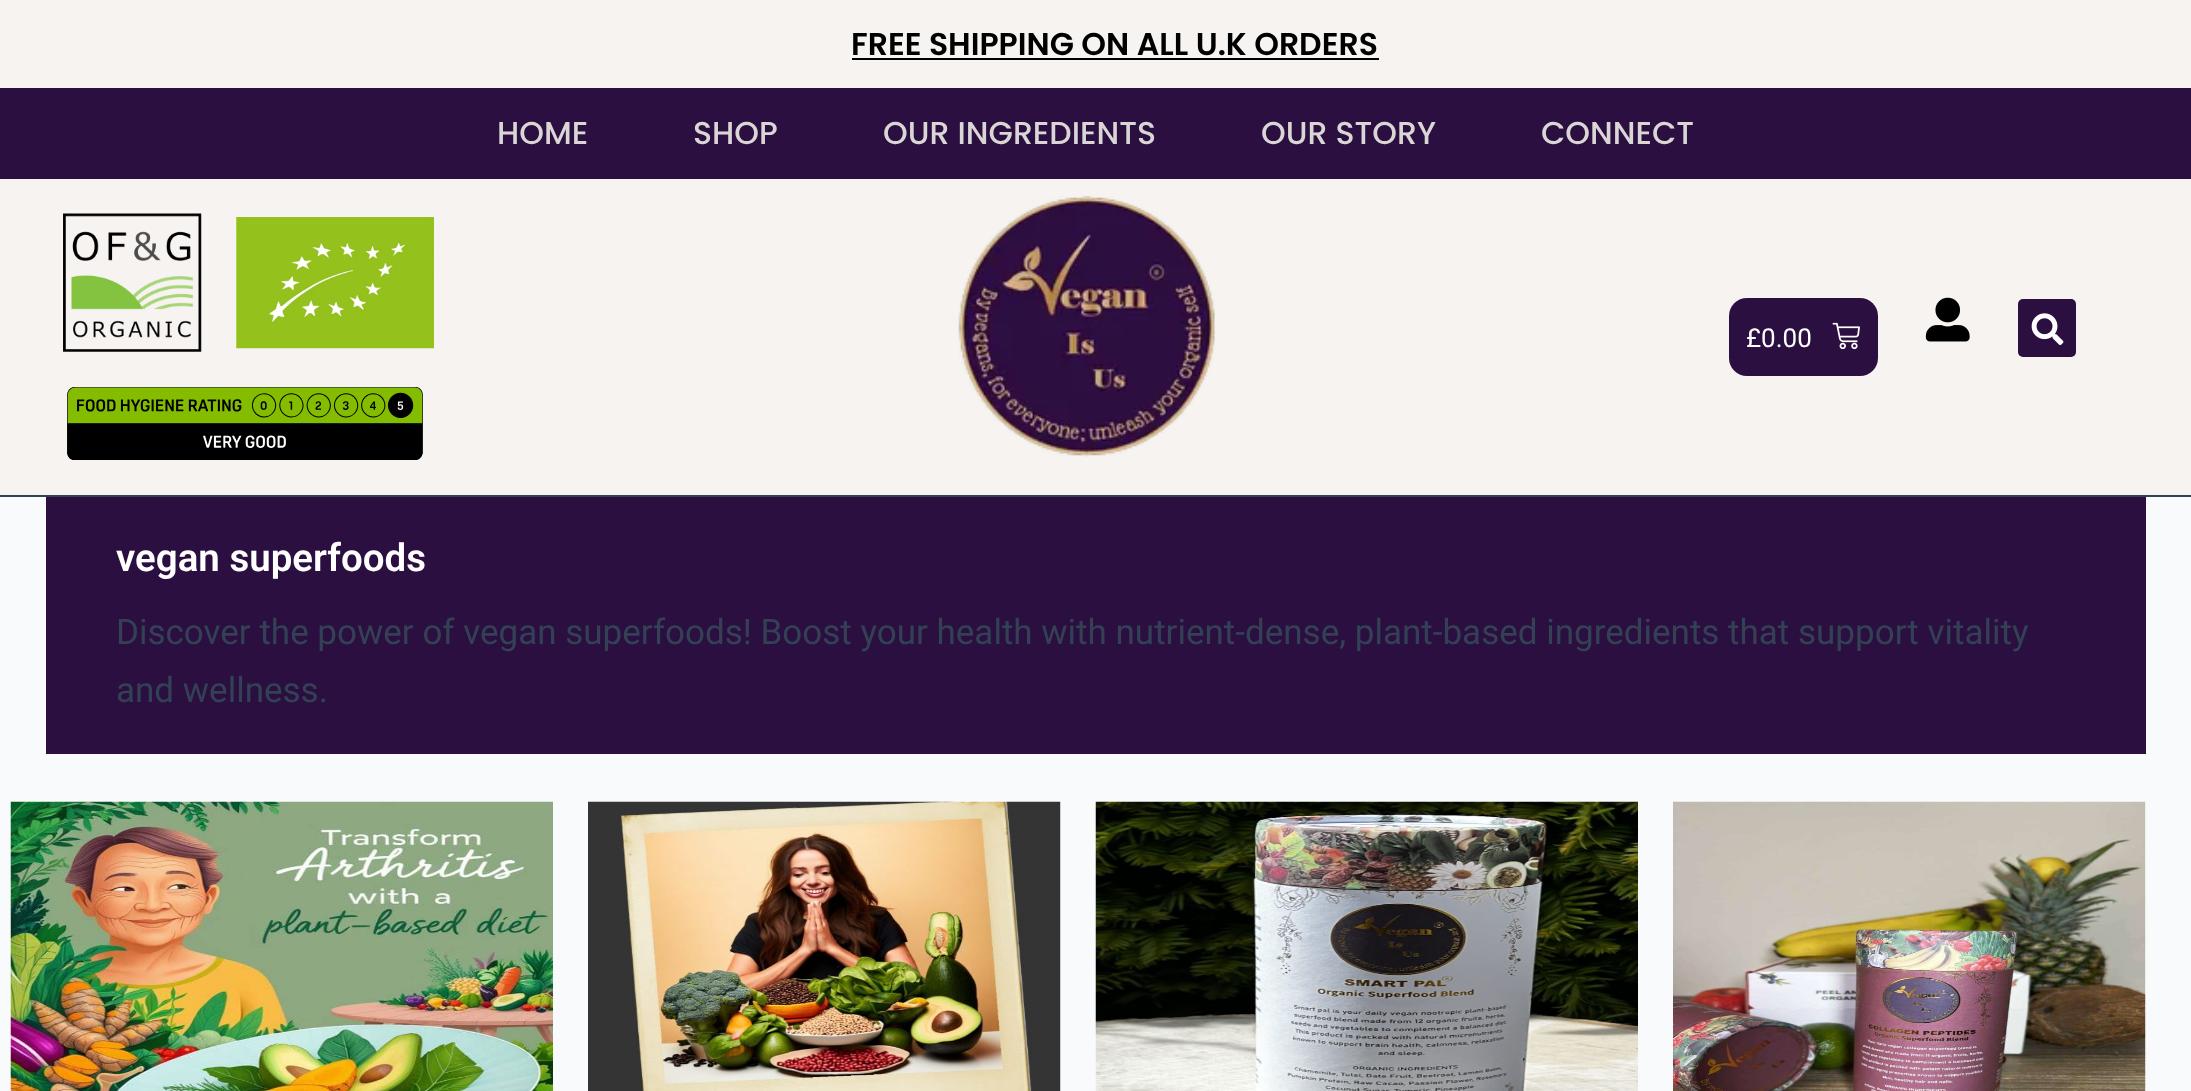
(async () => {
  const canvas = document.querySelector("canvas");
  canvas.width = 2191;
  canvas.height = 1091;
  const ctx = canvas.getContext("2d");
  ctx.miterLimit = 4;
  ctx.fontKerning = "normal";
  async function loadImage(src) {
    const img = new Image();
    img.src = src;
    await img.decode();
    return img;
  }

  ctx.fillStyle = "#f9fafb";
  ctx.fillRect(0, 0, 2191, 1091);
  for (const [x, y, w, h, color] of [
    [0, 0, 2191, 88, "#f7f3f0"],
    [852, 58, 527, 2, "#000000"],
    [0, 88, 2191, 91, "#2b0f40"],
    [0, 179, 2191, 316, "#f7f3f0"],
    [0, 495, 2191, 2, "#334155"],
  ]) {
    ctx.fillStyle = color;
    ctx.fillRect(x, y, w, h);
  }
  ctx.drawImage(await loadImage("img/1.png"), 63, 213, 139, 139);
  ctx.drawImage(await loadImage("img/2.png"), 236, 217, 198, 132);
  ctx.drawImage(await loadImage("img/3.png"), 67, 387, 356, 73);
  ctx.drawImage(await loadImage("img/4.png"), 958, 196, 257, 261);
  ctx.fillStyle = "#2b0f40";
  ctx.beginPath();
  ctx.roundRect(1729, 298, 149, 78, 18);
  ctx.fill();
  ctx.drawImage(await loadImage("img/5.png"), 1832, 322, 28, 28);
  ctx.drawImage(await loadImage("img/6.png"), 1925, 297, 45, 45);
  ctx.beginPath();
  ctx.roundRect(2018, 299, 58, 58, 5);
  ctx.fill();
  ctx.drawImage(await loadImage("img/7.png"), 2031, 313, 33, 33);
  ctx.fillRect(46, 497, 2100, 257);
  ctx.drawImage(await loadImage("img/8.png"), 10, 801, 543, 290);
  ctx.fillStyle = "#ffffff";
  ctx.fillRect(1060, 802, 1, 289);
  ctx.drawImage(await loadImage("img/9.png"), 588, 801, 473, 290);
  ctx.drawImage(await loadImage("img/10.png"), 1095, 801, 543, 290);
  ctx.fillRect(2145, 802, 1, 289);
  ctx.drawImage(await loadImage("img/11.png"), 1673, 801, 473, 290);
  ctx.font = "600 31.5px Poppins";
  ctx.fillStyle = "#000000";
  ctx.fillText("FREE SHIPPING ON ALL U.K ORDERS", 851, 55);
  ctx.font = "500 31.5px Poppins";
  ctx.fillStyle = "#dad6d6";
  for (const [text, x, y] of [
    ["HOME", 497, 144],
    ["SHOP", 693, 144],
    ["OUR INGREDIENTS", 883, 144],
    ["OUR STORY", 1261, 144],
    ["CONNECT", 1541, 144],
  ]) {
    ctx.fillText(text, x, y);
  }
  ctx.font = "26px Roboto";
  ctx.fillStyle = "#ffffff";
  ctx.fillText("£0.00", 1746, 347);
  ctx.font = "600 38.5px Roboto";
  ctx.fillText("vegan superfoods", 116, 571);
  ctx.font = "35px Roboto";
  ctx.fillStyle = "#334155";
  ctx.fillText("Discover the power of vegan superfoods! Boost your health with nutrient-dense, plant-based ingredients that support vitality", 116, 644);
  ctx.fillText("and wellness.", 116, 702);
})();
